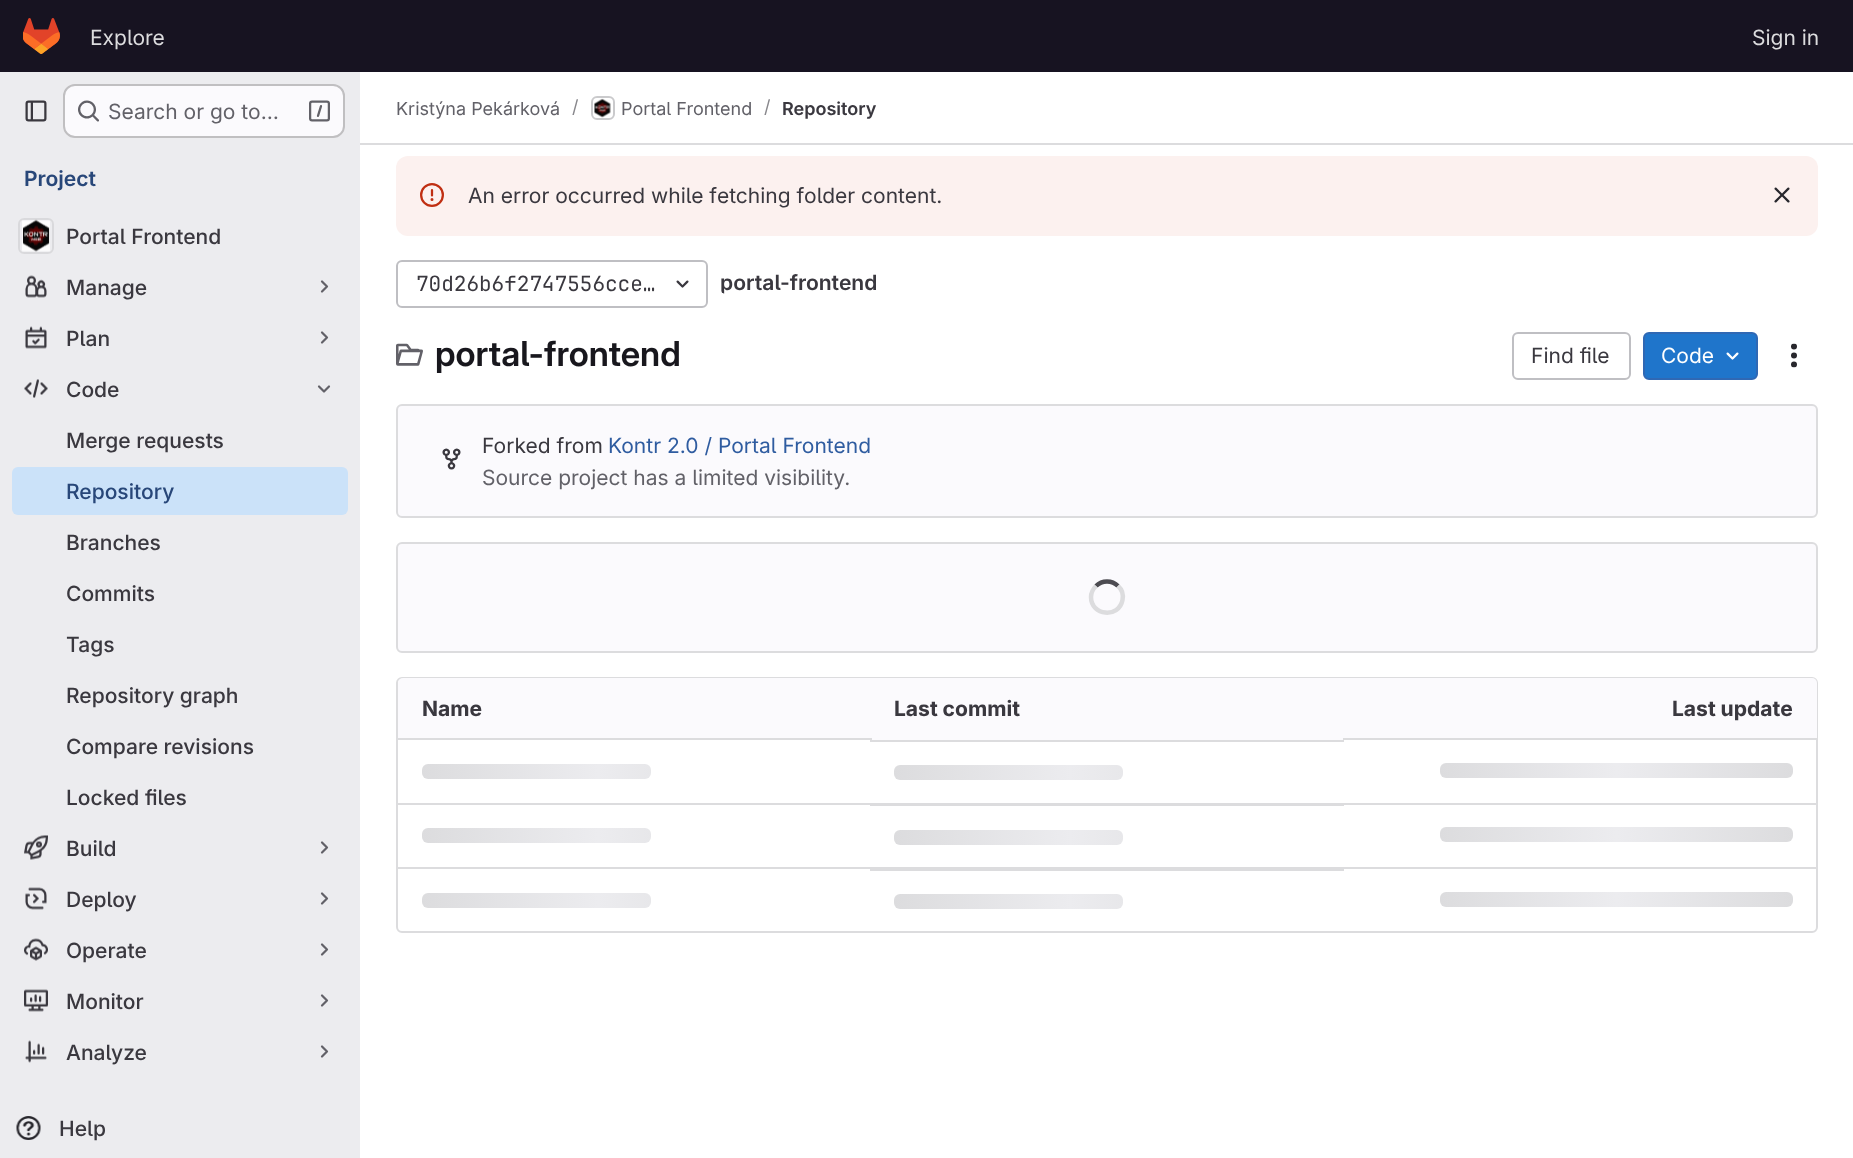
(async () => {
  const canvas = document.querySelector("canvas");
  canvas.width = 1853;
  canvas.height = 1158;
  const ctx = canvas.getContext("2d");
  ctx.miterLimit = 4;
  ctx.fontKerning = "normal";
  async function loadImage(src) {
    const img = new Image();
    img.src = src;
    await img.decode();
    return img;
  }
  let gradient, path;

  ctx.fillStyle = "#ffffff";
  ctx.fillRect(0, 0, 1853, 1158);
  ctx.fillStyle = "#171321";
  ctx.fillRect(0, 0, 1853, 72);
  ctx.drawImage(await loadImage("img/1.png"), 23, 18, 37, 36);
  ctx.fillStyle = "#ececef";
  ctx.fillRect(0, 72, 360, 1086);
  ctx.drawImage(await loadImage("img/2.png"), 25, 100, 22, 22);
  ctx.fillStyle = "#fbfafd";
  ctx.beginPath();
  ctx.roundRect(63, 84, 282, 54, 12);
  ctx.fill();
  ctx.beginPath();
  ctx.roundRect(64, 85, 280, 52, 11);
  ctx.strokeStyle = "rgba(5, 5, 6, 0.24)";
  ctx.lineWidth = 2;
  ctx.stroke();
  ctx.drawImage(await loadImage("img/3.png"), 78, 100, 21, 22);
  ctx.drawImage(await loadImage("img/4.png"), 309, 100, 21, 22);
  ctx.drawImage(await loadImage("img/5.png"), 22, 219, 28, 33);
  ctx.beginPath();
  ctx.roundRect(19, 219, 34, 34, 5);
  ctx.strokeStyle = "rgba(5, 5, 6, 0.08)";
  ctx.stroke();
  ctx.drawImage(await loadImage("img/6.png"), 25, 275, 22, 23);
  path = new Path2D("M322 281.5L327 286.5L322 291.5");
  ctx.strokeStyle = "#626168";
  ctx.lineWidth = 2.2;
  ctx.lineCap = "round";
  ctx.lineJoin = "round";
  ctx.stroke(path);
  ctx.drawImage(await loadImage("img/7.png"), 25, 326, 22, 23);
  path = new Path2D("M322 332.5L327 337.5L322 342.5");
  ctx.stroke(path);
  ctx.drawImage(await loadImage("img/8.png"), 24, 379, 24, 19);
  path = new Path2D("M329 386.5L324 391.5L319 386.5");
  ctx.stroke(path);
  ctx.fillStyle = "#cbe2f9";
  ctx.beginPath();
  ctx.roundRect(12, 467, 336, 48, 6);
  ctx.fill();
  ctx.drawImage(await loadImage("img/9.png"), 24, 835, 24, 25);
  path = new Path2D("M322 842.5L327 847.5L322 852.5");
  ctx.stroke(path);
  ctx.drawImage(await loadImage("img/10.png"), 25, 887, 22, 23);
  path = new Path2D("M322 893.5L327 898.5L322 903.5");
  ctx.stroke(path);
  ctx.drawImage(await loadImage("img/11.png"), 24, 938, 24, 23);
  path = new Path2D("M322 944.5L327 949.5L322 954.5");
  ctx.stroke(path);
  ctx.drawImage(await loadImage("img/12.png"), 24, 989, 24, 23);
  path = new Path2D("M322 995.5L327 1000.5L322 1005.5");
  ctx.stroke(path);
  ctx.drawImage(await loadImage("img/13.png"), 25, 1040, 22, 23);
  path = new Path2D("M322 1046.5L327 1051.5L322 1056.5");
  ctx.stroke(path);
  ctx.drawImage(await loadImage("img/14.png"), 16, 1116, 25, 24);
  ctx.fillStyle = "#dcdcde";
  ctx.fillRect(360, 143, 1493, 2);
  ctx.beginPath();
  ctx.roundRect(592, 97, 22, 22, 5);
  ctx.strokeStyle = "#dcdcde";
  ctx.lineWidth = 2;
  ctx.lineJoin = "miter";
  ctx.stroke();
  ctx.drawImage(await loadImage("img/15.png"), 594, 98, 17, 20);
  ctx.beginPath();
  ctx.roundRect(592, 97, 22, 22, 5);
  ctx.strokeStyle = "rgba(5, 5, 6, 0.08)";
  ctx.stroke();
  ctx.fillStyle = "#fcf1ef";
  ctx.beginPath();
  ctx.roundRect(396, 156, 1422, 80, 12);
  ctx.fill();
  ctx.drawImage(await loadImage("img/16.png"), 420, 183, 24, 24);
  ctx.drawImage(await loadImage("img/17.png"), 1774, 187, 16, 16);
  ctx.beginPath();
  ctx.roundRect(397, 261, 310, 46, 5);
  ctx.strokeStyle = "#bfbfc3";
  ctx.stroke();
  ctx.drawImage(await loadImage("img/18.png"), 676, 280, 13, 8);
  ctx.drawImage(await loadImage("img/19.png"), 396, 343, 27, 23);
  ctx.beginPath();
  ctx.roundRect(1513, 333, 117, 46, 5);
  ctx.stroke();
  ctx.fillStyle = "#1f75cb";
  ctx.beginPath();
  ctx.roundRect(1644, 333, 113, 46, 5);
  ctx.fill();
  ctx.strokeStyle = "#2f68b4";
  ctx.stroke();
  ctx.drawImage(await loadImage("img/20.png"), 1726, 352, 13, 8);
  ctx.drawImage(await loadImage("img/21.png"), 1791, 343, 6, 25);
  ctx.fillStyle = "#fbfafd";
  ctx.beginPath();
  ctx.roundRect(397, 405, 1420, 112, 5);
  ctx.fill();
  ctx.strokeStyle = "#dcdcde";
  ctx.stroke();
  ctx.drawImage(await loadImage("img/22.png"), 442, 448, 19, 22);
  ctx.beginPath();
  ctx.roundRect(397, 543, 1420, 109, 5);
  ctx.fill();
  ctx.stroke();
  path = new Path2D("M1096 586C1102 580 1112 580 1118 586");
  ctx.strokeStyle = "#4c4b51";
  ctx.lineWidth = 4.5;
  ctx.lineCap = "butt";
  ctx.stroke(path);
  path = new Path2D("M1118 586C1122 589.5 1123.5 595 1122.5 600C1119 618.5 1091 616 1091 597C1091 593 1093 589 1096 586");
  ctx.strokeStyle = "#dcdcde";
  ctx.stroke(path);
  ctx.beginPath();
  ctx.roundRect(397, 678, 1420, 254, 5);
  ctx.lineWidth = 2;
  ctx.stroke();
  ctx.beginPath();
  ctx.roundRect(398, 678, 472, 62, [5, 0, 0, 0]);
  ctx.fill();
  ctx.fillRect(870, 678, 474, 62);
  ctx.beginPath();
  ctx.roundRect(1344, 678, 473, 62, [0, 5, 0, 0]);
  ctx.fill();
  ctx.fillStyle = "#dcdcde";
  ctx.fillRect(398, 803, 1419, 2);
  ctx.fillRect(398, 738, 474, 2);
  gradient = ctx.createLinearGradient(422, 764, 774, 764);
  gradient.addColorStop(0, "#dcdcde");
  gradient.addColorStop(0.5, "#ececef");
  gradient.addColorStop(1, "#dcdcde");
  ctx.fillStyle = gradient;
  ctx.beginPath();
  ctx.roundRect(422, 764, 229, 15, 6);
  ctx.fill();
  ctx.fillStyle = "#dcdcde";
  ctx.fillRect(870, 740, 474, 2);
  gradient = ctx.createLinearGradient(894, 765, 1247, 765);
  gradient.addColorStop(0, "#dcdcde");
  gradient.addColorStop(0.5, "#ececef");
  gradient.addColorStop(1, "#dcdcde");
  ctx.fillStyle = gradient;
  ctx.beginPath();
  ctx.roundRect(894, 765, 229, 15, 6);
  ctx.fill();
  ctx.fillStyle = "#dcdcde";
  ctx.fillRect(1343, 738, 474, 2);
  gradient = ctx.createLinearGradient(1440, 763, 1793, 763);
  gradient.addColorStop(0, "#dcdcde");
  gradient.addColorStop(0.5, "#ececef");
  gradient.addColorStop(1, "#dcdcde");
  ctx.fillStyle = gradient;
  ctx.beginPath();
  ctx.roundRect(1440, 763, 353, 15, 6);
  ctx.fill();
  ctx.fillStyle = "#dcdcde";
  ctx.fillRect(398, 867, 1419, 2);
  gradient = ctx.createLinearGradient(422, 828, 774, 828);
  gradient.addColorStop(0, "#dcdcde");
  gradient.addColorStop(0.5, "#ececef");
  gradient.addColorStop(1, "#dcdcde");
  ctx.fillStyle = gradient;
  ctx.beginPath();
  ctx.roundRect(422, 828, 229, 15, 6);
  ctx.fill();
  ctx.fillStyle = "#dcdcde";
  ctx.fillRect(870, 805, 474, 1);
  gradient = ctx.createLinearGradient(894, 830, 1247, 830);
  gradient.addColorStop(0, "#dcdcde");
  gradient.addColorStop(0.5, "#ececef");
  gradient.addColorStop(1, "#dcdcde");
  ctx.fillStyle = gradient;
  ctx.beginPath();
  ctx.roundRect(894, 830, 229, 15, 6);
  ctx.fill();
  gradient = ctx.createLinearGradient(1440, 827, 1793, 827);
  gradient.addColorStop(0, "#dcdcde");
  gradient.addColorStop(0.5, "#ececef");
  gradient.addColorStop(1, "#dcdcde");
  ctx.fillStyle = gradient;
  ctx.beginPath();
  ctx.roundRect(1440, 827, 353, 15, 6);
  ctx.fill();
  gradient = ctx.createLinearGradient(422, 893, 774, 893);
  gradient.addColorStop(0, "#dcdcde");
  gradient.addColorStop(0.5, "#ececef");
  gradient.addColorStop(1, "#dcdcde");
  ctx.fillStyle = gradient;
  ctx.beginPath();
  ctx.roundRect(422, 893, 229, 15, 6);
  ctx.fill();
  ctx.fillStyle = "#dcdcde";
  ctx.fillRect(870, 869, 474, 2);
  gradient = ctx.createLinearGradient(894, 894, 1247, 894);
  gradient.addColorStop(0, "#dcdcde");
  gradient.addColorStop(0.5, "#ececef");
  gradient.addColorStop(1, "#dcdcde");
  ctx.fillStyle = gradient;
  ctx.beginPath();
  ctx.roundRect(894, 894, 229, 15, 6);
  ctx.fill();
  gradient = ctx.createLinearGradient(1440, 892, 1793, 892);
  gradient.addColorStop(0, "#dcdcde");
  gradient.addColorStop(0.5, "#ececef");
  gradient.addColorStop(1, "#dcdcde");
  ctx.fillStyle = gradient;
  ctx.beginPath();
  ctx.roundRect(1440, 892, 353, 15, 6);
  ctx.fill();
  ctx.font = "21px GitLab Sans";
  ctx.fillStyle = "#dcdcde";
  ctx.fillText("Explore", 90, 45);
  ctx.fillText("Sign in", 1752, 45);
  ctx.fillStyle = "#626168";
  ctx.fillText("Search or go to…", 108, 119);
  ctx.font = "600 21px 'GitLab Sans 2'";
  ctx.fillStyle = "#284779";
  ctx.fillText("Project", 24, 186);
  ctx.font = "500 21px GitLab Sans";
  ctx.fillStyle = "#3a383f";
  for (const [text, x, y] of [
    ["Portal Frontend", 66, 244],
    ["Manage", 66, 295],
    ["Plan", 66, 346],
    ["Code", 66, 397],
    ["Merge requests", 66, 448],
  ]) {
    ctx.fillText(text, x, y);
  }
  ctx.fillStyle = "#284779";
  ctx.fillText("Repository", 66, 499);
  ctx.fillStyle = "#3a383f";
  for (const [text, x, y] of [
    ["Branches", 66, 550],
    ["Commits", 66, 601],
    ["Tags", 66, 652],
    ["Repository graph", 66, 703],
    ["Compare revisions", 66, 754],
    ["Locked files", 66, 805],
    ["Build", 66, 856],
    ["Deploy", 66, 907],
    ["Operate", 66, 958],
    ["Monitor", 66, 1009],
    ["Analyze", 66, 1060],
    ["Help", 59, 1136],
  ]) {
    ctx.fillText(text, x, y);
  }
  ctx.font = "18px GitLab Sans";
  ctx.fillStyle = "#626168";
  ctx.fillText("Kristýna Pekárková", 396, 115);
  ctx.fillStyle = "#89888d";
  ctx.fillText("/", 572, 113);
  ctx.fillStyle = "#626168";
  ctx.fillText("Portal Frontend", 621, 115);
  ctx.fillStyle = "#89888d";
  ctx.fillText("/", 764, 113);
  ctx.font = "600 18px 'GitLab Sans 2'";
  ctx.fillStyle = "#3a383f";
  ctx.fillText("Repository", 782, 115);
  ctx.font = "21px GitLab Sans";
  ctx.fillText("An error occurred while fetching folder content.", 468, 203);
  ctx.font = "21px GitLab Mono";
  ctx.fillText("70d26b6f2747556cce…", 416, 291);
  ctx.save();
  ctx.beginPath();
  ctx.roundRect(720, 269, 158, 25, 6);
  ctx.clip();
  ctx.font = "600 21px 'GitLab Sans 2'";
  ctx.fillText("portal-frontend", 720, 290);
  ctx.restore();
  ctx.font = "600 34.5px GitLab Sans";
  ctx.fillStyle = "#18171d";
  ctx.fillText("portal-frontend", 435, 366);
  ctx.font = "21px GitLab Sans";
  ctx.fillStyle = "#3a383f";
  ctx.fillText("Find file", 1531, 363);
  ctx.fillStyle = "#ffffff";
  ctx.fillText("Code", 1661, 363);
  ctx.fillStyle = "#3a383f";
  ctx.fillText("Forked from", 482, 453);
  ctx.fillStyle = "#2f5ca0";
  ctx.fillText("Kontr 2.0 / Portal Frontend", 608, 453);
  ctx.fillStyle = "#626168";
  ctx.fillText("Source project has a limited visibility.", 482, 485);
  ctx.font = "bold 21px GitLab Sans";
  ctx.fillStyle = "#3a383f";
  for (const [text, x, y] of [
    ["Name", 422, 716],
    ["Last commit", 894, 716],
    ["Last update", 1672, 716],
  ]) {
    ctx.fillText(text, x, y);
  }
})();
